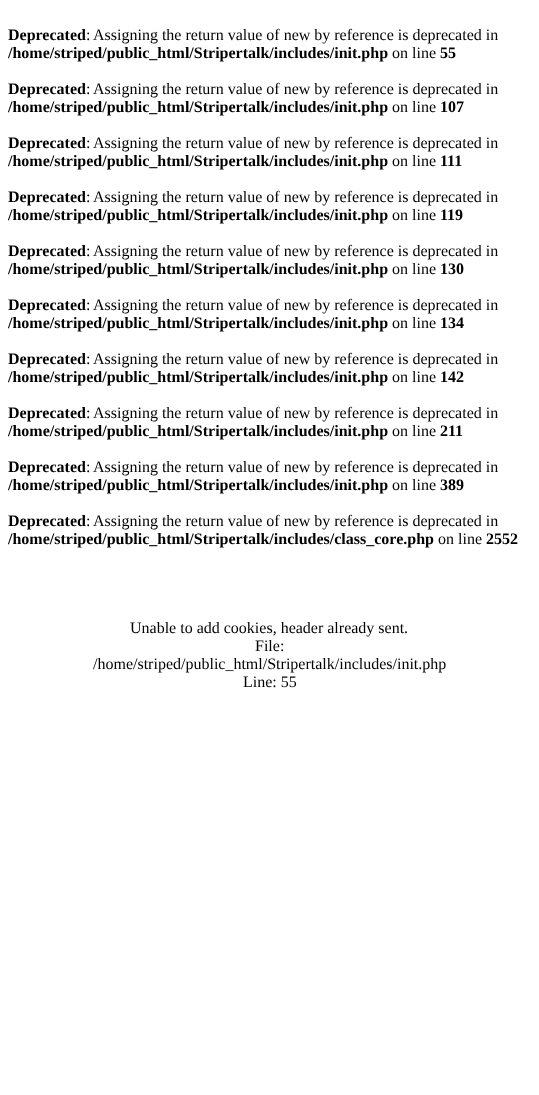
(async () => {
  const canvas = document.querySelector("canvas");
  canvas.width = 539;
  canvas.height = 1095;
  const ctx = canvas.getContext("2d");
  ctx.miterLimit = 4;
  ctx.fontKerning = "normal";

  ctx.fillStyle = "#ffffff";
  ctx.fillRect(0, 0, 539, 1095);
  ctx.font = "bold 16px Liberation Serif";
  ctx.fillStyle = "#000000";
  ctx.fillText("Deprecated", 8, 40);
  ctx.font = "16px Liberation Serif";
  ctx.fillText(":", 86, 40);
  ctx.fillText("Assigning the return value of new by reference is deprecated in", 93, 40);
  ctx.font = "bold 16px Liberation Serif";
  ctx.fillText("/home/striped/public_html/Stripertalk/includes/init.php", 8, 58);
  ctx.font = "16px Liberation Serif";
  ctx.fillText("on line", 392, 58);
  ctx.font = "bold 16px Liberation Serif";
  ctx.fillText("55", 440, 58);
  ctx.fillText("Deprecated", 8, 94);
  ctx.font = "16px Liberation Serif";
  ctx.fillText(":", 86, 94);
  ctx.fillText("Assigning the return value of new by reference is deprecated in", 93, 94);
  ctx.font = "bold 16px Liberation Serif";
  ctx.fillText("/home/striped/public_html/Stripertalk/includes/init.php", 8, 112);
  ctx.font = "16px Liberation Serif";
  ctx.fillText("on line", 392, 112);
  ctx.font = "bold 16px Liberation Serif";
  ctx.fillText("107", 440, 112);
  ctx.fillText("Deprecated", 8, 148);
  ctx.font = "16px Liberation Serif";
  ctx.fillText(":", 86, 148);
  ctx.fillText("Assigning the return value of new by reference is deprecated in", 93, 148);
  ctx.font = "bold 16px Liberation Serif";
  ctx.fillText("/home/striped/public_html/Stripertalk/includes/init.php", 8, 166);
  ctx.font = "16px Liberation Serif";
  ctx.fillText("on line", 392, 166);
  ctx.font = "bold 16px Liberation Serif";
  ctx.fillText("111", 440, 166);
  ctx.fillText("Deprecated", 8, 202);
  ctx.font = "16px Liberation Serif";
  ctx.fillText(":", 86, 202);
  ctx.fillText("Assigning the return value of new by reference is deprecated in", 93, 202);
  ctx.font = "bold 16px Liberation Serif";
  ctx.fillText("/home/striped/public_html/Stripertalk/includes/init.php", 8, 220);
  ctx.font = "16px Liberation Serif";
  ctx.fillText("on line", 392, 220);
  ctx.font = "bold 16px Liberation Serif";
  ctx.fillText("119", 440, 220);
  ctx.fillText("Deprecated", 8, 256);
  ctx.font = "16px Liberation Serif";
  ctx.fillText(":", 86, 256);
  ctx.fillText("Assigning the return value of new by reference is deprecated in", 93, 256);
  ctx.font = "bold 16px Liberation Serif";
  ctx.fillText("/home/striped/public_html/Stripertalk/includes/init.php", 8, 274);
  ctx.font = "16px Liberation Serif";
  ctx.fillText("on line", 392, 274);
  ctx.font = "bold 16px Liberation Serif";
  ctx.fillText("130", 440, 274);
  ctx.fillText("Deprecated", 8, 310);
  ctx.font = "16px Liberation Serif";
  ctx.fillText(":", 86, 310);
  ctx.fillText("Assigning the return value of new by reference is deprecated in", 93, 310);
  ctx.font = "bold 16px Liberation Serif";
  ctx.fillText("/home/striped/public_html/Stripertalk/includes/init.php", 8, 328);
  ctx.font = "16px Liberation Serif";
  ctx.fillText("on line", 392, 328);
  ctx.font = "bold 16px Liberation Serif";
  ctx.fillText("134", 440, 328);
  ctx.fillText("Deprecated", 8, 364);
  ctx.font = "16px Liberation Serif";
  ctx.fillText(":", 86, 364);
  ctx.fillText("Assigning the return value of new by reference is deprecated in", 93, 364);
  ctx.font = "bold 16px Liberation Serif";
  ctx.fillText("/home/striped/public_html/Stripertalk/includes/init.php", 8, 382);
  ctx.font = "16px Liberation Serif";
  ctx.fillText("on line", 392, 382);
  ctx.font = "bold 16px Liberation Serif";
  ctx.fillText("142", 440, 382);
  ctx.fillText("Deprecated", 8, 418);
  ctx.font = "16px Liberation Serif";
  ctx.fillText(":", 86, 418);
  ctx.fillText("Assigning the return value of new by reference is deprecated in", 93, 418);
  ctx.font = "bold 16px Liberation Serif";
  ctx.fillText("/home/striped/public_html/Stripertalk/includes/init.php", 8, 436);
  ctx.font = "16px Liberation Serif";
  ctx.fillText("on line", 392, 436);
  ctx.font = "bold 16px Liberation Serif";
  ctx.fillText("211", 440, 436);
  ctx.fillText("Deprecated", 8, 472);
  ctx.font = "16px Liberation Serif";
  ctx.fillText(":", 86, 472);
  ctx.fillText("Assigning the return value of new by reference is deprecated in", 93, 472);
  ctx.font = "bold 16px Liberation Serif";
  ctx.fillText("/home/striped/public_html/Stripertalk/includes/init.php", 8, 490);
  ctx.font = "16px Liberation Serif";
  ctx.fillText("on line", 392, 490);
  ctx.font = "bold 16px Liberation Serif";
  ctx.fillText("389", 440, 490);
  ctx.fillText("Deprecated", 8, 526);
  ctx.font = "16px Liberation Serif";
  ctx.fillText(":", 86, 526);
  ctx.fillText("Assigning the return value of new by reference is deprecated in", 93, 526);
  ctx.font = "bold 16px Liberation Serif";
  ctx.fillText("/home/striped/public_html/Stripertalk/includes/class_core.php", 8, 544);
  ctx.font = "16px Liberation Serif";
  ctx.fillText("on line", 438, 544);
  ctx.font = "bold 16px Liberation Serif";
  ctx.fillText("2552", 486, 544);
  ctx.font = "16px Liberation Serif";
  for (const [text, x, y] of [
    ["Unable to add cookies, header already sent.", 130, 633],
    ["File:", 255, 651],
    ["/home/striped/public_html/Stripertalk/includes/init.php", 93, 669],
    ["Line: 55", 243, 687],
  ]) {
    ctx.fillText(text, x, y);
  }
})();
